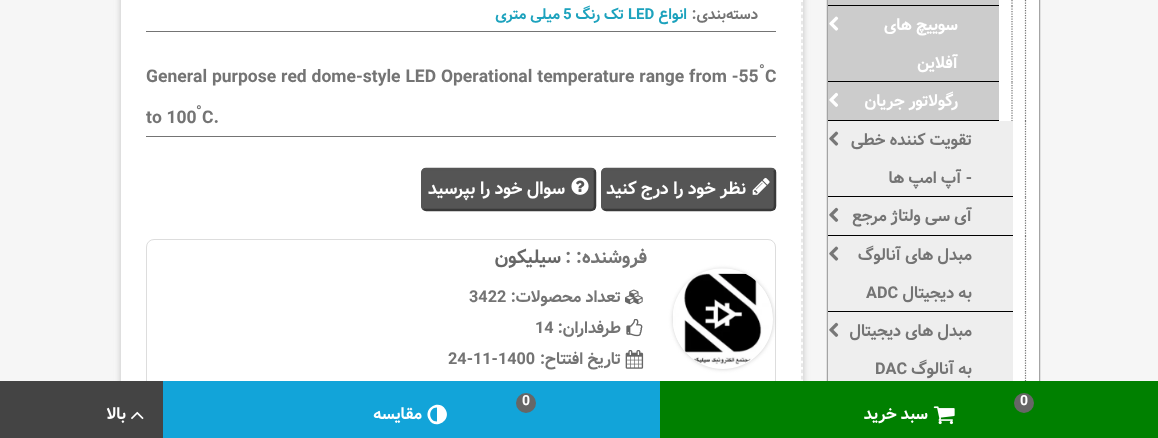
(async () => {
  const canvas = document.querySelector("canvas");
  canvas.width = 1158;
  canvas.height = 438;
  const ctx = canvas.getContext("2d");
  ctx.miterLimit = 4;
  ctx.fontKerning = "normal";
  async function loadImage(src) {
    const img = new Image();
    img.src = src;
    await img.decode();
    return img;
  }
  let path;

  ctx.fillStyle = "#f6f6f6";
  ctx.fillRect(0, 0, 1158, 438);
  ctx.fillStyle = "#000000";
  ctx.filter = "blur(1px)";
  ctx.beginPath();
  ctx.roundRect(828, -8, 211, 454, 5);
  ctx.fill();
  ctx.filter = "none";
  ctx.fillStyle = "#ffffff";
  ctx.fillRect(999, 0, 40, 381);
  path = new Path2D("M1025.5-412.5V121");
  ctx.strokeStyle = "#747474";
  ctx.lineWidth = 1.2;
  ctx.setLineDash([1.25, 1.25]);
  ctx.stroke(path);
  path = new Path2D("M1012-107.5V6");
  ctx.stroke(path);
  ctx.fillStyle = "#cccccc";
  ctx.fillRect(828, 0, 171, 5);
  ctx.fillStyle = "#000000";
  ctx.fillRect(828, 5, 2, 1);
  path = new Path2D("M1012 6V82.5");
  ctx.stroke(path);
  ctx.fillStyle = "#cccccc";
  ctx.fillRect(828, 6, 171, 114);
  ctx.fillStyle = "#000000";
  ctx.fillRect(828, 81, 171, 1);
  ctx.drawImage(await loadImage("img/1.png"), 829, 16, 10, 15);
  path = new Path2D("M1012 82.5V121");
  ctx.stroke(path);
  ctx.fillRect(828, 120, 2, 1);
  ctx.drawImage(await loadImage("img/2.png"), 829, 92, 9, 15);
  path = new Path2D("M1025.5 121V197.5");
  ctx.stroke(path);
  ctx.fillStyle = "#eeeeee";
  ctx.fillRect(828, 121, 185, 114);
  ctx.fillStyle = "#000000";
  ctx.fillRect(828, 196, 185, 1);
  ctx.drawImage(await loadImage("img/3.png"), 829, 131, 10, 15);
  path = new Path2D("M1025.5 197.5V236");
  ctx.stroke(path);
  ctx.fillRect(828, 235, 185, 1);
  ctx.drawImage(await loadImage("img/4.png"), 829, 207, 10, 15);
  path = new Path2D("M1025.5 236V312.5");
  ctx.stroke(path);
  ctx.fillStyle = "#eeeeee";
  ctx.fillRect(828, 236, 185, 145);
  ctx.fillStyle = "#000000";
  ctx.fillRect(828, 311, 185, 1);
  ctx.drawImage(await loadImage("img/3.png"), 829, 246, 10, 15);
  path = new Path2D("M1025.5 312.5V389");
  ctx.stroke(path);
  ctx.drawImage(await loadImage("img/4.png"), 829, 322, 10, 15);
  ctx.fillStyle = "rgba(159, 159, 159, 0.6)";
  ctx.filter = "blur(3px)";
  ctx.beginPath();
  ctx.roundRect(121, -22, 682, 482, 13);
  ctx.fill();
  ctx.filter = "none";
  ctx.fillStyle = "#ffffff";
  ctx.fillRect(121, 0, 682, 381);
  path = new Path2D("M802-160V422.5");
  ctx.strokeStyle = "#d9d9d9";
  ctx.setLineDash([3.75, 2.48]);
  ctx.stroke(path);
  ctx.fillStyle = "#747474";
  ctx.fillRect(146, 31, 630, 1);
  ctx.fillRect(146, 136, 630, 1);
  ctx.fillStyle = "#555555";
  ctx.beginPath();
  ctx.roundRect(601, 168, 175, 43, 5);
  ctx.fill();
  path = new Path2D("M774 170C774.5 170.5 775 171.5 775 172.5V206C775 207 774.5 208 774 209C773 209.5 772 210 771 210H606C605.5 210 604.5 209.5 603.5 209");
  ctx.strokeStyle = "#393939";
  ctx.lineWidth = 2.5;
  ctx.setLineDash([]);
  ctx.stroke(path);
  path = new Path2D("M603.5 209C603 208 602.5 207 602.5 206V172.5C602.5 171.5 603 170.5 603.5 170C604.5 169 605.5 169 606 169H771C772 169 773 169 774 170");
  ctx.strokeStyle = "#555555";
  ctx.stroke(path);
  ctx.drawImage(await loadImage("img/5.png"), 752, 177, 18, 18);
  ctx.beginPath();
  ctx.roundRect(421, 168, 175, 43, 5);
  ctx.fill();
  path = new Path2D("M594 170C594.5 170.5 595 171.5 595 172.5V206C595 207 594.5 208 594 209C593 209.5 592 210 591 210H426C425.5 210 424.5 209.5 423.5 209");
  ctx.strokeStyle = "#393939";
  ctx.stroke(path);
  path = new Path2D("M423.5 209C423 208 422.5 207 422.5 206V172.5C422.5 171.5 423 170.5 423.5 170C424.5 169 425.5 169 426 169H591C592 169 593 169 594 170");
  ctx.strokeStyle = "#555555";
  ctx.stroke(path);
  ctx.drawImage(await loadImage("img/6.png"), 571, 177, 18, 18);
  ctx.beginPath();
  ctx.roundRect(146.5, 239.5, 629, 158, 7.5);
  ctx.strokeStyle = "#dddddd";
  ctx.lineWidth = 1;
  ctx.stroke();
  ctx.save();
  path = new Path2D("M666 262H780V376H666ZM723 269C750.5 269 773 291.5 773 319C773 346.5 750.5 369 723 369C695.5 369 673 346.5 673 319C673 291.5 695.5 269 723 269Z");
  ctx.clip(path, "evenodd");
  ctx.fillStyle = "#cccccc";
  ctx.filter = "blur(2px)";
  ctx.beginPath();
  ctx.roundRect(673, 269, 100, 100, 50);
  ctx.fill();
  ctx.filter = "none";
  ctx.restore();
  ctx.drawImage(await loadImage("img/7.png"), 673, 268, 100, 97);
  ctx.drawImage(await loadImage("img/8.png"), 625, 289, 18, 16);
  ctx.drawImage(await loadImage("img/9.png"), 626, 319, 17, 18);
  ctx.drawImage(await loadImage("img/10.png"), 625, 350, 19, 19);
  ctx.fillStyle = "#444444";
  ctx.fillRect(0, 381, 163, 57);
  ctx.fillStyle = "#008000";
  ctx.fillRect(660, 381, 498, 57);
  ctx.fillStyle = "#666666";
  ctx.beginPath();
  ctx.arc(1024, 403, 10, 0, Math.PI * 2);
  ctx.fill();
  ctx.drawImage(await loadImage("img/11.png"), 933, 406, 22, 19);
  ctx.fillStyle = "#12a4d9";
  ctx.fillRect(163, 381, 497, 57);
  ctx.fillStyle = "#666666";
  ctx.beginPath();
  ctx.arc(526, 403, 10, 0, Math.PI * 2);
  ctx.fill();
  ctx.fillStyle = "#ffffff";
  path = new Path2D("M437 421.5V407.5C428 407.5 428 421.5 437 421.5ZM445.5 409.5C452 420.5 435 430.5 429 419.5C422.5 408.5 439 398.5 445.5 409.5Z");
  ctx.fill(path);
  ctx.drawImage(await loadImage("img/12.png"), 131, 411, 13, 9);
  ctx.direction = "rtl";
  ctx.font = "bold 16.25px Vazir";
  for (const [text, x, y] of [
    ["سوییچ های", 958, 30],
    ["آفلاین", 958, 68],
    ["رگولاتور جریان", 958, 106],
  ]) {
    ctx.fillText(text, x, y);
  }
  ctx.fillStyle = "#747474";
  for (const [text, x, y] of [
    ["تقویت کننده خطی", 972, 145],
    ["- آپ امپ ها", 972, 183],
    ["آی سی ولتاژ مرجع", 972, 221],
    ["مبدل های آنالوگ", 972, 260],
    ["به دیجیتال", 972, 298],
  ]) {
    ctx.fillText(text, x, y);
  }
  ctx.direction = "ltr";
  ctx.fillText("ADC", 866, 298);
  ctx.direction = "rtl";
  ctx.fillText("مبدل های دیجیتال", 972, 336);
  ctx.fillText("به آنالوگ", 972, 374);
  ctx.direction = "ltr";
  ctx.fillText("DAC", 875, 374);
  ctx.direction = "rtl";
  ctx.font = "bold 15px Vazir";
  ctx.fillText("دسته‌بندی:", 758, 19);
  ctx.fillStyle = "#1ca2bd";
  ctx.fillText("انواع", 687, 19);
  ctx.direction = "ltr";
  ctx.fillText("LED", 628, 19);
  ctx.direction = "rtl";
  ctx.fillText("تک رنگ", 624, 19);
  ctx.direction = "ltr";
  ctx.fillText("5", 563, 19);
  ctx.direction = "rtl";
  ctx.fillText("میلی متری", 560, 19);
  ctx.direction = "ltr";
  ctx.fillStyle = "#747474";
  ctx.fillText("°", 759, 75);
  ctx.font = "bold 17.5px Vazir";
  ctx.fillText("C", 765, 82);
  ctx.wordSpacing = "0.25px";
  ctx.fillText("General purpose red dome-style LED Operational temperature range from -55", 146, 82);
  ctx.wordSpacing = "0px";
  ctx.font = "bold 15px Vazir";
  ctx.fillText("°", 196, 116);
  ctx.font = "bold 17.5px Vazir";
  ctx.fillText("C.", 202, 123);
  ctx.fillText("to 100", 146, 123);
  ctx.direction = "rtl";
  ctx.fillStyle = "#ffffff";
  ctx.fillText("نظر خود را درج کنید", 746, 194);
  ctx.fillText("سوال خود را بپرسید", 565, 194);
  ctx.font = "bold 18.75px Vazir";
  ctx.fillStyle = "#747474";
  ctx.fillText("فروشنده: :", 647, 263);
  ctx.fillStyle = "#666666";
  ctx.fillText("سيليكون", 561, 263);
  ctx.font = "bold 16.25px Vazir";
  ctx.fillStyle = "#747474";
  ctx.fillText("تعداد محصولات:", 621, 302);
  ctx.direction = "ltr";
  ctx.fillText("3422", 469, 302);
  ctx.direction = "rtl";
  ctx.fillText("طرفداران:", 621, 333);
  ctx.direction = "ltr";
  ctx.fillText("14", 535, 333);
  ctx.direction = "rtl";
  ctx.fillText("تاریخ افتتاح:", 621, 364);
  ctx.direction = "ltr";
  ctx.fillText("24-11-1400", 448, 364);
  ctx.font = "bold 14px Vazir";
  ctx.fillStyle = "#ffffff";
  ctx.fillText("0", 1020, 405);
  ctx.direction = "rtl";
  ctx.font = "bold 16.25px Vazir";
  ctx.fillText("سبد خرید", 928, 419);
  ctx.direction = "ltr";
  ctx.font = "bold 14px Vazir";
  ctx.fillText("0", 522, 405);
  ctx.direction = "rtl";
  ctx.font = "bold 16.25px Vazir";
  ctx.fillText("مقایسه", 422, 419);
  ctx.fillText("بالا", 126, 419);
})();
